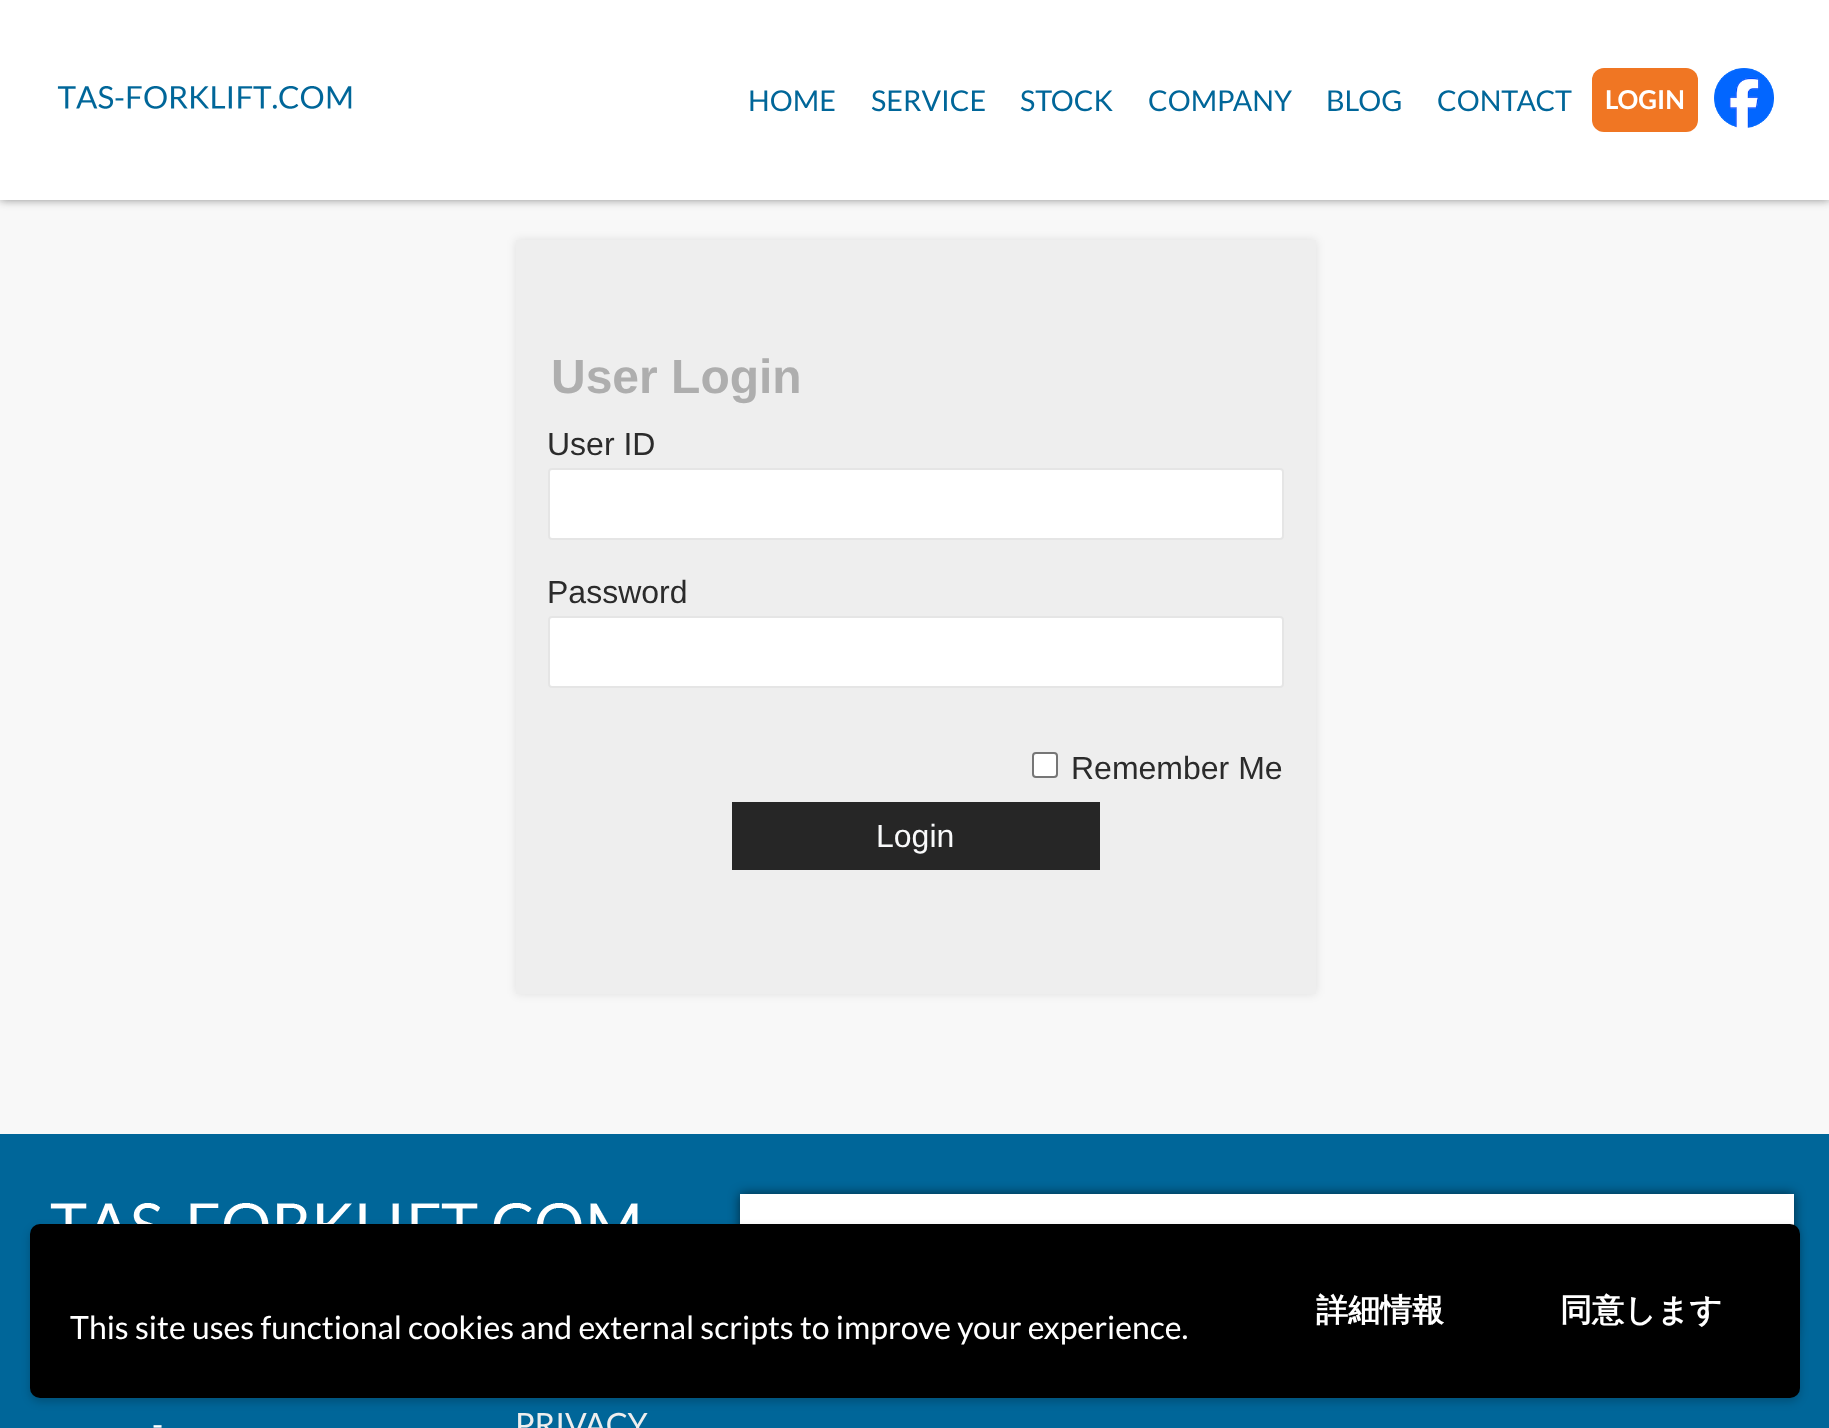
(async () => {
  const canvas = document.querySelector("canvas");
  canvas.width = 1829;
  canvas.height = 1428;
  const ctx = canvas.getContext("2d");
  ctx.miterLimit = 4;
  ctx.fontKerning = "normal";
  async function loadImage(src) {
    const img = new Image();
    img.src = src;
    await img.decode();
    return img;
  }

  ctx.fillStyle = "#006699";
  ctx.fillRect(0, 0, 1829, 1428);
  ctx.fillStyle = "#f8f8f8";
  ctx.fillRect(0, 200, 1829, 934);
  ctx.fillStyle = "rgba(25, 25, 25, 0.48)";
  ctx.filter = "blur(5px)";
  ctx.beginPath();
  ctx.rect(0, 0, 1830, 200);
  ctx.fill();
  ctx.filter = "none";
  ctx.fillStyle = "#ffffff";
  ctx.fillRect(0, 0, 1829, 200);
  ctx.drawImage(await loadImage("img/1.png"), 57, 86, 295, 23);
  ctx.drawImage(await loadImage("img/2.png"), 1714, 68, 60, 60);
  ctx.fillStyle = "#f07623";
  ctx.beginPath();
  ctx.roundRect(1592, 68, 106, 64, 12);
  ctx.fill();
  ctx.fillStyle = "rgba(0, 0, 0, 0.1)";
  ctx.filter = "blur(5px)";
  ctx.beginPath();
  ctx.rect(516, 240, 800, 754);
  ctx.fill();
  ctx.filter = "none";
  ctx.fillStyle = "#eeeeee";
  ctx.fillRect(516, 240, 800, 754);
  ctx.fillStyle = "#ffffff";
  ctx.beginPath();
  ctx.roundRect(548, 468, 736, 72, 4);
  ctx.fill();
  ctx.beginPath();
  ctx.roundRect(549, 469, 734, 70, 3);
  ctx.strokeStyle = "rgba(0, 0, 0, 0.1)";
  ctx.lineWidth = 2;
  ctx.stroke();
  ctx.beginPath();
  ctx.roundRect(548, 616, 736, 72, 4);
  ctx.fill();
  ctx.beginPath();
  ctx.roundRect(549, 617, 734, 70, 3);
  ctx.stroke();
  ctx.beginPath();
  ctx.roundRect(1033, 753, 24, 24, 3);
  ctx.fill();
  ctx.strokeStyle = "#767676";
  ctx.stroke();
  ctx.fillStyle = "#262626";
  ctx.fillRect(732, 802, 368, 68);
  ctx.fillStyle = "rgba(0, 0, 0, 0.59)";
  ctx.filter = "blur(6px)";
  ctx.beginPath();
  ctx.rect(740, 1194, 1054, 138);
  ctx.fill();
  ctx.filter = "none";
  ctx.fillStyle = "#ffffff";
  ctx.fillRect(740, 1194, 1054, 31);
  ctx.drawImage(await loadImage("img/3.png"), 50, 1203, 588, 21);
  ctx.fillStyle = "rgba(0, 0, 0, 0.2)";
  ctx.filter = "blur(4px)";
  ctx.beginPath();
  ctx.roundRect(30, 1228, 1770, 174, 10);
  ctx.fill();
  ctx.filter = "none";
  ctx.fillStyle = "#000000";
  ctx.beginPath();
  ctx.roundRect(30, 1224, 1770, 174, 10);
  ctx.fill();
  ctx.font = "28.75px Lato";
  ctx.fillStyle = "#006699";
  for (const [text, x, y] of [
    ["HOME", 748, 111],
    ["SERVICE", 871, 111],
    ["STOCK", 1020, 111],
    ["COMPANY", 1148, 111],
    ["BLOG", 1326, 111],
    ["CONTACT", 1437, 111],
  ]) {
    ctx.fillText(text, x, y);
  }
  ctx.font = "bold 26px Lato";
  ctx.fillStyle = "#ffffff";
  ctx.fillText("LOGIN", 1605, 109);
  ctx.font = "bold 48px Liberation Sans";
  ctx.fillStyle = "#aeaeae";
  ctx.fillText("User Login", 551, 393);
  ctx.font = "32px Liberation Sans";
  ctx.fillStyle = "#2b2b2b";
  for (const [text, x, y] of [
    ["User ID", 547, 455],
    ["Password", 547, 603],
    ["Remember Me", 1071, 779],
  ]) {
    ctx.fillText(text, x, y);
  }
  ctx.fillStyle = "#f8f9fa";
  ctx.fillText("Login", 876, 847);
  ctx.font = "bold 32px WenQuanYi Zen Hei";
  ctx.fillStyle = "#ffffff";
  ctx.fillText("詳細情報", 1316, 1321);
  ctx.fillText("同意します", 1560, 1321);
  ctx.font = "32px Lato";
  ctx.fillText("This site uses functional cookies and external scripts to improve your experience.", 70, 1339);
  ctx.fillText("-", 152, 1436);
  ctx.fillStyle = "#eeeeee";
  ctx.fillText("PRIVACY", 515, 1436);
})();
